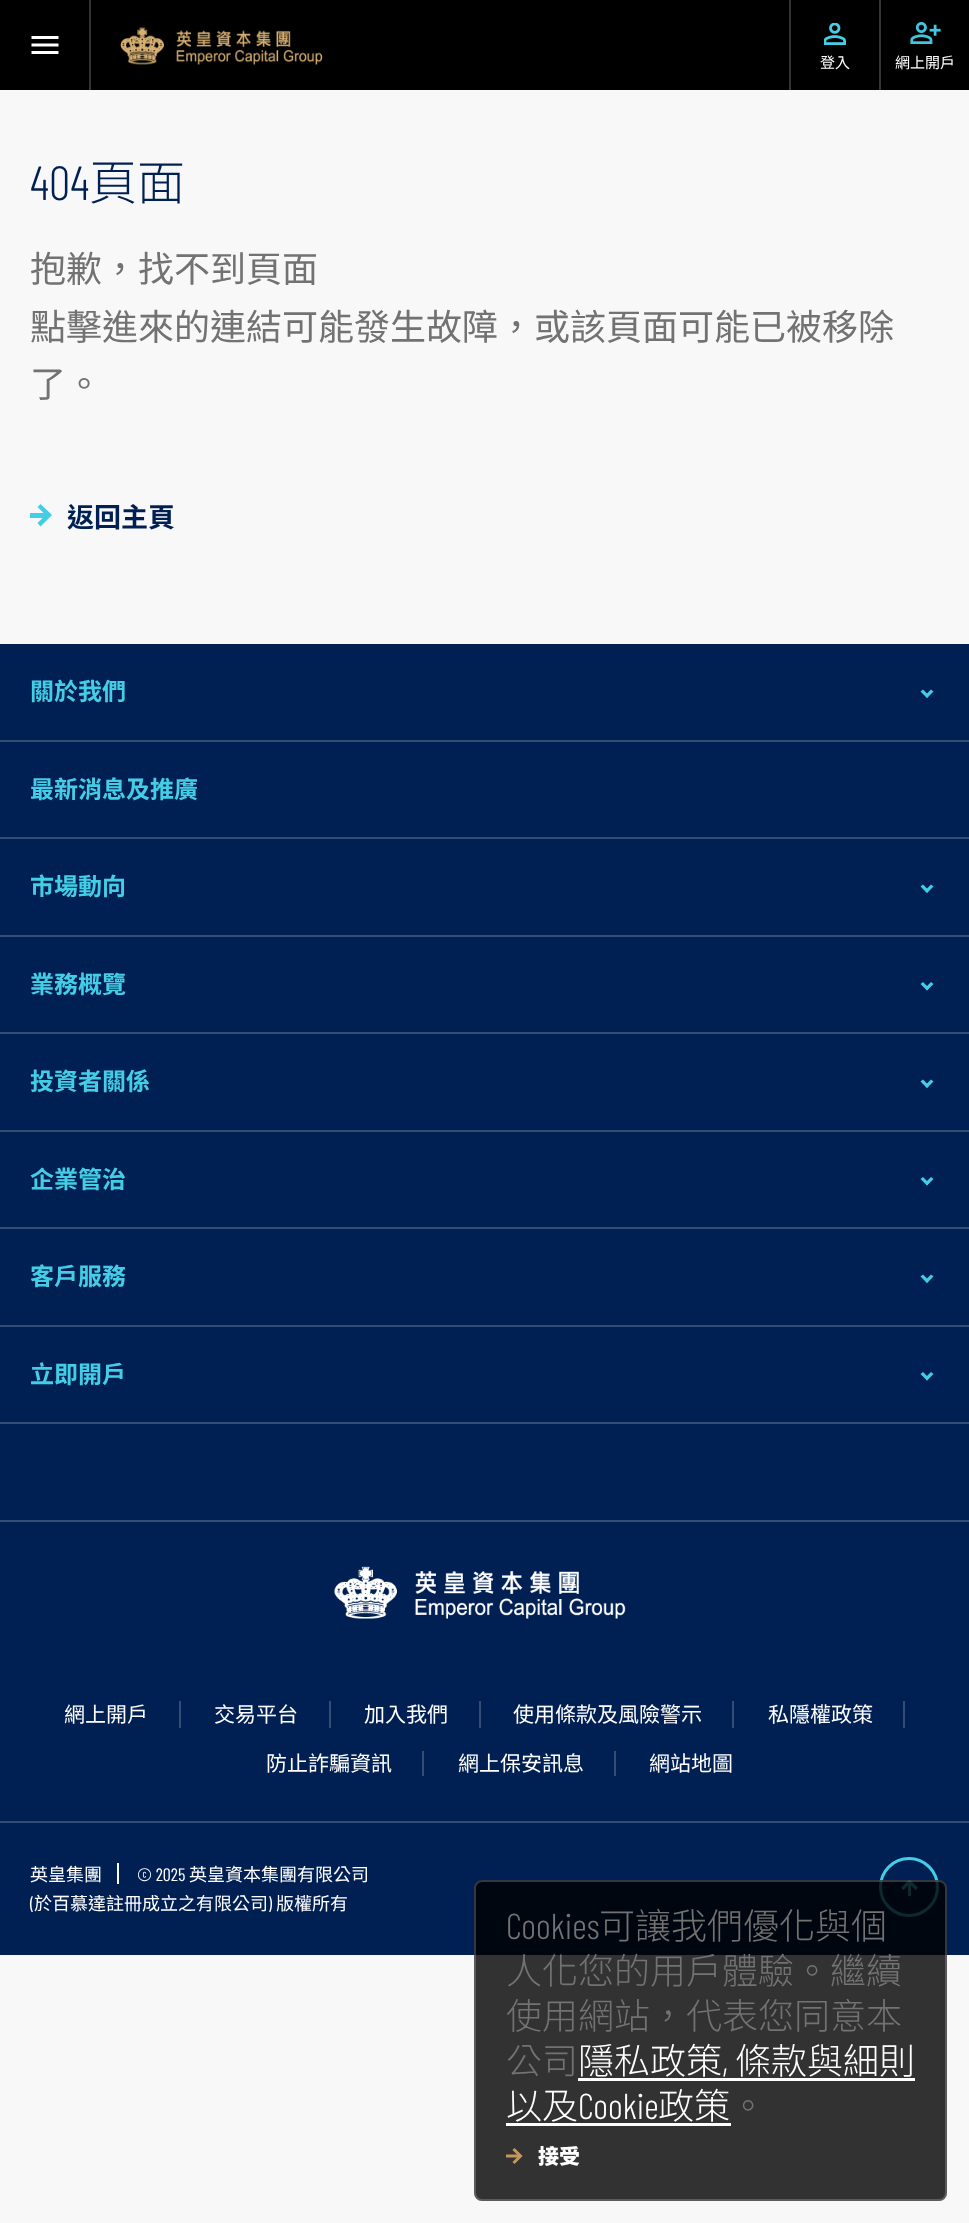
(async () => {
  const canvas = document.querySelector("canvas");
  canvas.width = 969;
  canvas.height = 2223;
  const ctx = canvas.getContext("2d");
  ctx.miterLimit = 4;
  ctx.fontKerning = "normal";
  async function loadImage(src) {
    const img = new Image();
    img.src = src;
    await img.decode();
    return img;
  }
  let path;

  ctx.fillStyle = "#f8f8f8";
  ctx.fillRect(0, 0, 969, 2223);
  ctx.fillStyle = "#000000";
  ctx.fillRect(0, 0, 969, 90);
  ctx.fillStyle = "#333333";
  ctx.fillRect(89, 0, 2, 90);
  ctx.drawImage(await loadImage("img/1.png"), 31, 36, 28, 18);
  ctx.drawImage(await loadImage("img/2.png"), 120, 26, 203, 39);
  ctx.fillRect(789, 0, 2, 90);
  ctx.drawImage(await loadImage("img/3.png"), 824, 23, 22, 22);
  ctx.fillRect(879, 0, 2, 90);
  ctx.drawImage(await loadImage("img/4.png"), 910, 22, 31, 22);
  ctx.fillStyle = "#44cde6";
  path = new Path2D("M40.5 526.5L37.5 523L45.5 515L37.5 507L40.5 504L52 515Z");
  ctx.fill(path);
  for (const [x, y, w, h, color] of [
    [30, 513, 16, 5, "#44cde6"],
    [0, 644, 969, 1311, "#002053"],
    [0, 740, 969, 2, "#334d75"],
  ]) {
    ctx.fillStyle = color;
    ctx.fillRect(x, y, w, h);
  }
  ctx.fillStyle = "#44cde6";
  path = new Path2D("M933.5 691.5L927 698L925 695.5L931 689.5Z");
  ctx.fill(path);
  path = new Path2D("M929 695.5L927 698L920.5 691.5L923 689.5Z");
  ctx.fill(path);
  ctx.fillStyle = "#334d75";
  ctx.fillRect(0, 837, 969, 2);
  ctx.fillRect(0, 935, 969, 2);
  ctx.fillStyle = "#44cde6";
  path = new Path2D("M933.5 886.5L927 893L925 890.5L931 884.5Z");
  ctx.fill(path);
  path = new Path2D("M929 890.5L927 893L920.5 886.5L923 884.5Z");
  ctx.fill(path);
  ctx.fillStyle = "#334d75";
  ctx.fillRect(0, 1032, 969, 2);
  ctx.fillStyle = "#44cde6";
  path = new Path2D("M933.5 984L927 990.5L925 988L931 982Z");
  ctx.fill(path);
  path = new Path2D("M929 988L927 990.5L920.5 984L923 982Z");
  ctx.fill(path);
  ctx.fillStyle = "#334d75";
  ctx.fillRect(0, 1130, 969, 2);
  ctx.fillStyle = "#44cde6";
  path = new Path2D("M933.5 1081.5L927 1088L925 1085.5L931 1079.5Z");
  ctx.fill(path);
  path = new Path2D("M929 1085.5L927 1088L920.5 1081.5L923 1079.5Z");
  ctx.fill(path);
  ctx.fillStyle = "#334d75";
  ctx.fillRect(0, 1227, 969, 2);
  ctx.fillStyle = "#44cde6";
  path = new Path2D("M933.5 1179L927 1185.5L925 1183L931 1177Z");
  ctx.fill(path);
  path = new Path2D("M929 1183L927 1185.5L920.5 1179L923 1177Z");
  ctx.fill(path);
  ctx.fillStyle = "#334d75";
  ctx.fillRect(0, 1325, 969, 2);
  ctx.fillStyle = "#44cde6";
  path = new Path2D("M933.5 1276.5L927 1283L925 1280.5L931 1274.5Z");
  ctx.fill(path);
  path = new Path2D("M929 1280.5L927 1283L920.5 1276.5L923 1274.5Z");
  ctx.fill(path);
  ctx.fillStyle = "#334d75";
  ctx.fillRect(0, 1422, 969, 2);
  ctx.fillStyle = "#44cde6";
  path = new Path2D("M933.5 1374L927 1380.5L925 1378L931 1372Z");
  ctx.fill(path);
  path = new Path2D("M929 1378L927 1380.5L920.5 1374L923 1372Z");
  ctx.fill(path);
  ctx.fillStyle = "#334d75";
  ctx.fillRect(0, 1520, 969, 2);
  ctx.drawImage(await loadImage("img/5.png"), 334, 1566, 292, 53);
  for (const [x, y, w, h, color] of [
    [179, 1701, 2, 27, "#334d75"],
    [329, 1701, 2, 27, "#334d75"],
    [479, 1701, 2, 27, "#334d75"],
    [732, 1701, 2, 27, "#334d75"],
    [903, 1701, 2, 27, "#334d75"],
    [422, 1751, 2, 25, "#334d75"],
    [614, 1751, 2, 25, "#334d75"],
    [0, 1821, 969, 2, "#334d75"],
    [117, 1863, 2, 21, "#ffffff"],
  ]) {
    ctx.fillStyle = color;
    ctx.fillRect(x, y, w, h);
  }
  ctx.beginPath();
  ctx.arc(909, 1887, 28.5, 0, Math.PI * 2);
  ctx.strokeStyle = "#44cde6";
  ctx.lineWidth = 3;
  ctx.stroke();
  ctx.drawImage(await loadImage("img/6.png"), 901, 1880, 17, 16);
  ctx.fillStyle = "rgba(0, 0, 0, 0.8)";
  ctx.beginPath();
  ctx.roundRect(474, 1880, 473, 321, 8);
  ctx.fill();
  ctx.beginPath();
  ctx.roundRect(475, 1881, 471, 319, 7);
  ctx.strokeStyle = "rgba(255, 255, 255, 0.2)";
  ctx.lineWidth = 2;
  ctx.stroke();
  ctx.fillStyle = "#ffffff";
  ctx.fillRect(578, 2078, 337, 3);
  ctx.fillRect(506, 2123, 225, 3);
  path = new Path2D("M513.5 2149L520.5 2156L513.5 2163");
  ctx.strokeStyle = "#c6965c";
  ctx.lineWidth = 3;
  ctx.stroke(path);
  ctx.save();
  ctx.beginPath();
  ctx.rect(506, 2148, 16, 17);
  ctx.clip();
  path = new Path2D("M519 2156H505.5");
  ctx.stroke(path);
  ctx.restore();
  ctx.font = "15px Noto Sans TC";
  ctx.fillText("登入", 820, 68);
  ctx.fillText("網上開戶", 895, 68);
  ctx.font = "300 48px Barlow Condensed";
  ctx.fillStyle = "#002053";
  ctx.fillText("404", 30, 200);
  ctx.font = "300 48px Noto Sans TC";
  ctx.fillText("頁面", 89, 200);
  ctx.font = "36px Noto Sans TC";
  ctx.fillStyle = "#727272";
  for (const [text, x, y] of [
    ["抱歉，找不到頁面", 30, 282],
    ["點擊進來的連結可能發生故障，或該頁面可能已被移除", 30, 340],
    ["了。", 30, 397],
  ]) {
    ctx.fillText(text, x, y);
  }
  ctx.font = "bold 27px Noto Sans TC";
  ctx.fillStyle = "#002053";
  ctx.fillText("返回主頁", 67, 527);
  ctx.font = "bold 24px Noto Sans TC";
  ctx.fillStyle = "#44cde6";
  for (const [text, x, y] of [
    ["關於我們", 30, 700],
    ["最新消息及推廣", 30, 798],
    ["市場動向", 30, 895],
    ["業務概覽", 30, 993],
    ["投資者關係", 30, 1090],
    ["企業管治", 30, 1188],
    ["客戶服務", 30, 1285],
    ["立即開戶", 30, 1383],
  ]) {
    ctx.fillText(text, x, y);
  }
  ctx.font = "21px Noto Sans TC";
  ctx.fillStyle = "#ffffff";
  for (const [text, x, y] of [
    ["網上開戶", 64, 1722],
    ["交易平台", 214, 1722],
    ["加入我們", 364, 1722],
    ["使用條款及風險警示", 513, 1722],
    ["私隱權政策", 768, 1722],
    ["防止詐騙資訊", 266, 1771],
    ["網上保安訊息", 458, 1771],
    ["網站地圖", 649, 1771],
  ]) {
    ctx.fillText(text, x, y);
  }
  ctx.font = "18px Noto Sans TC";
  ctx.fillText("英皇集團", 30, 1881);
  ctx.font = "18px Barlow Condensed";
  ctx.fillText("© 2025", 137, 1881);
  ctx.font = "18px Noto Sans TC";
  ctx.fillText("英皇資本集團有限公司", 189, 1881);
  ctx.font = "18px Barlow Condensed";
  ctx.fillText("(", 30, 1910);
  ctx.font = "18px Noto Sans TC";
  ctx.fillText("於百慕達註冊成立之有限公司", 34, 1910);
  ctx.font = "18px Barlow Condensed";
  ctx.fillText(")", 268, 1910);
  ctx.font = "18px Noto Sans TC";
  ctx.fillText("版權所有", 276, 1910);
  ctx.font = "300 36px Barlow Condensed";
  ctx.fillStyle = "#727272";
  ctx.fillText("Cookies", 506, 1939);
  ctx.font = "300 36px Noto Sans TC";
  for (const [text, x, y] of [
    ["可讓我們優化與個", 599, 1939],
    ["人化您的用戶體驗。繼續", 506, 1984],
    ["使用網站，代表您同意本", 506, 2029],
    ["公司", 506, 2074],
  ]) {
    ctx.fillText(text, x, y);
  }
  ctx.fillStyle = "#ffffff";
  ctx.fillText("隱私政策", 578, 2074);
  ctx.font = "300 36px Barlow Condensed";
  ctx.fillText(",", 722, 2074);
  ctx.font = "300 36px Noto Sans TC";
  ctx.fillText("條款與細則", 735, 2074);
  ctx.fillText("以及", 506, 2119);
  ctx.font = "300 36px Barlow Condensed";
  ctx.fillText("Cookie", 578, 2119);
  ctx.font = "300 36px Noto Sans TC";
  ctx.fillText("政策", 658, 2119);
  ctx.fillStyle = "#727272";
  ctx.fillText("。", 730, 2119);
  ctx.font = "900 21px Noto Sans TC";
  ctx.fillStyle = "#ffffff";
  ctx.fillText("接受", 538, 2164);
})();
